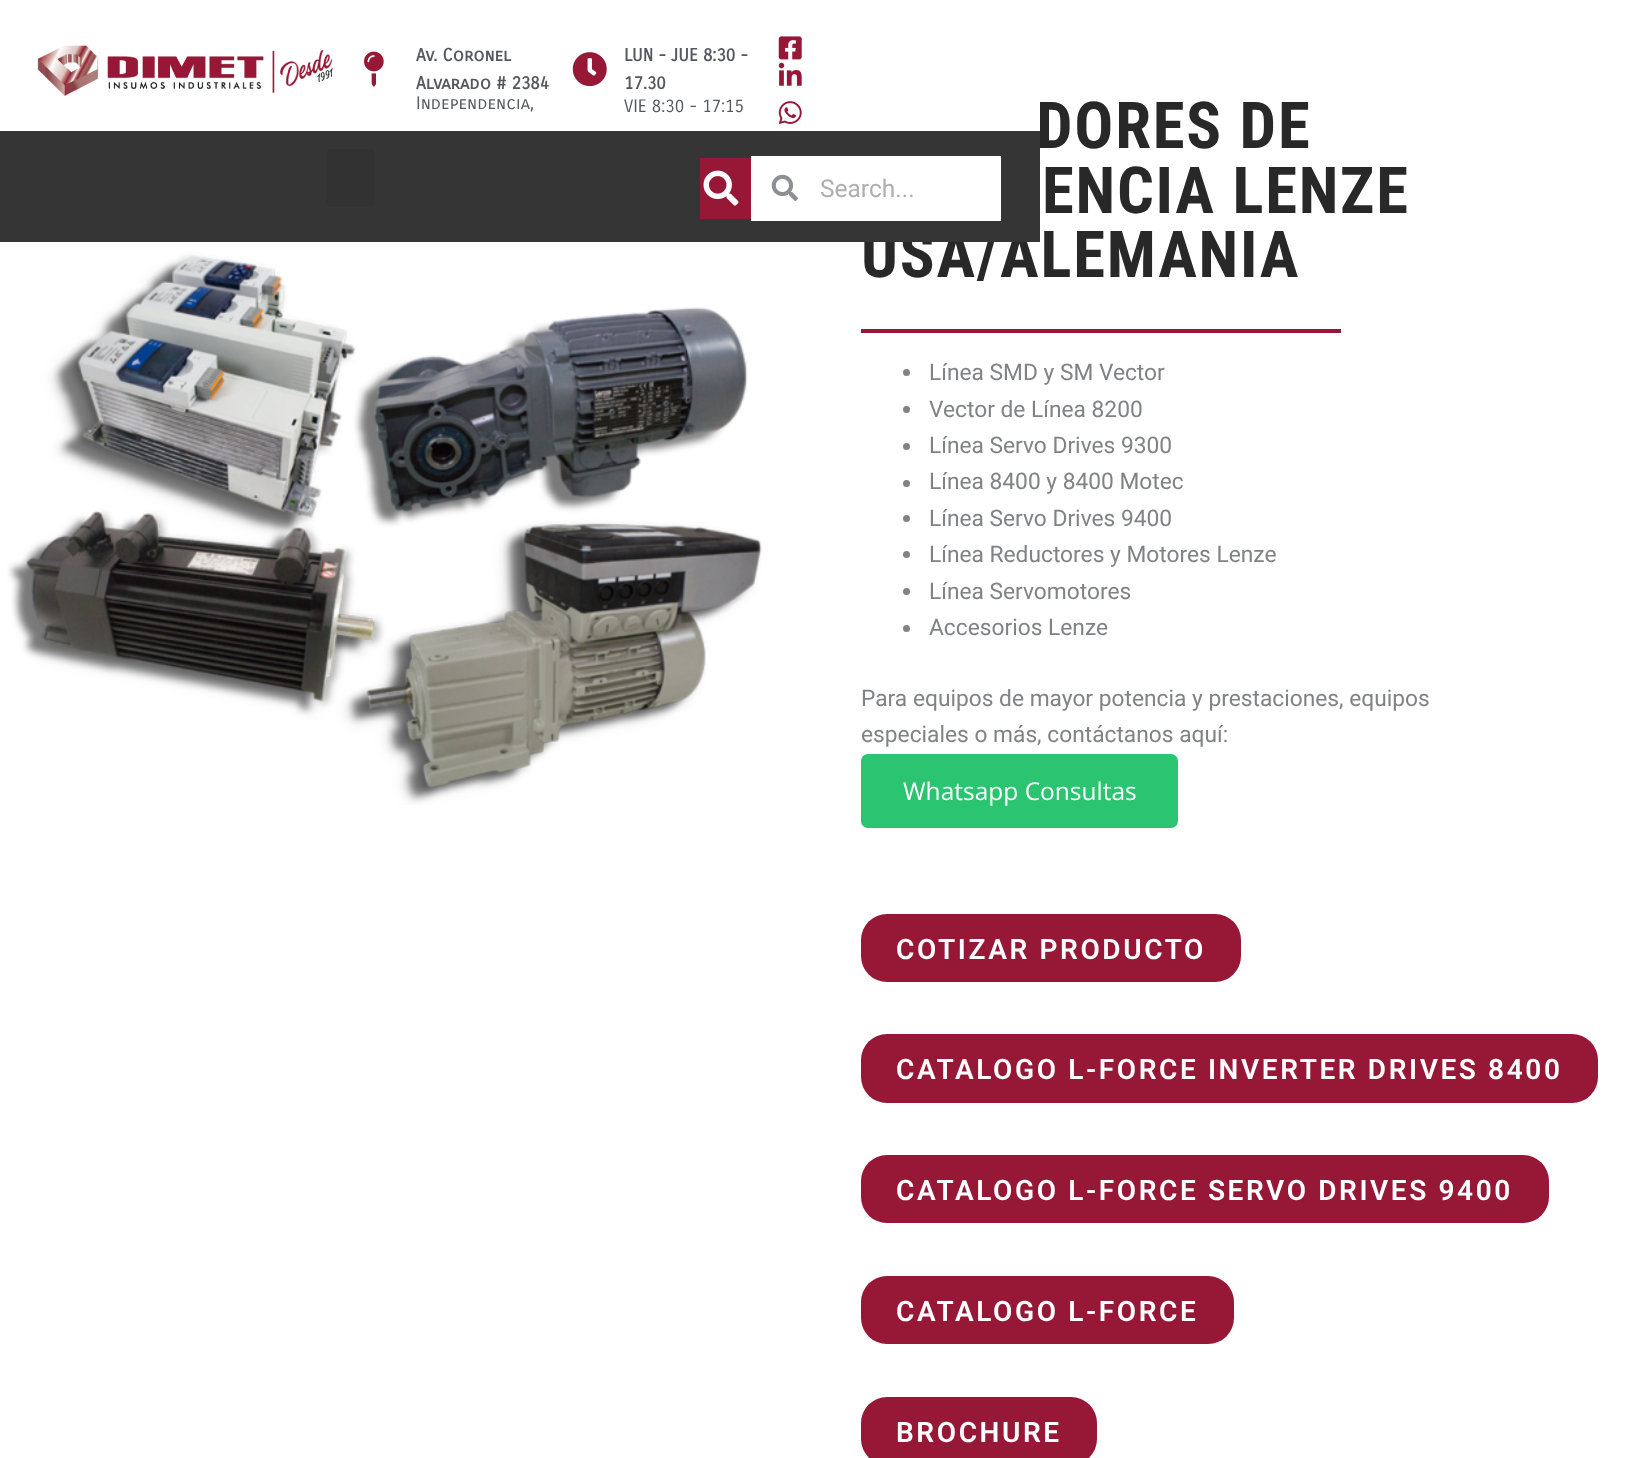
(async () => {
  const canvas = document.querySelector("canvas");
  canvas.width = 1633;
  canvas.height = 1458;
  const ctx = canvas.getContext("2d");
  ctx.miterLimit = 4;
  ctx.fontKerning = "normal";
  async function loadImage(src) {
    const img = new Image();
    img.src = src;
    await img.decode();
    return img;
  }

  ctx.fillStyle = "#ffffff";
  ctx.fillRect(0, 0, 1633, 1458);
  ctx.drawImage(await loadImage("img/1.png"), 37, 45, 296, 51);
  ctx.drawImage(await loadImage("img/2.png"), 364, 51, 20, 36);
  ctx.drawImage(await loadImage("img/3.png"), 572, 52, 35, 35);
  ctx.drawImage(await loadImage("img/4.png"), 778, 36, 24, 24);
  ctx.drawImage(await loadImage("img/5.png"), 778, 62, 24, 24);
  ctx.drawImage(await loadImage("img/6.png"), 778, 101, 24, 24);
  ctx.drawImage(await loadImage("img/9.png"), 7, 242, 755, 563);
  ctx.fillStyle = "#961836";
  ctx.fillRect(861, 329, 480, 4);
  ctx.fillStyle = "#808285";
  ctx.beginPath();
  ctx.arc(906.5, 372.5, 3.5, 0, Math.PI * 2);
  ctx.fill();
  ctx.beginPath();
  ctx.arc(906.5, 409.5, 3.5, 0, Math.PI * 2);
  ctx.fill();
  ctx.beginPath();
  ctx.arc(906.5, 446.5, 3.5, 0, Math.PI * 2);
  ctx.fill();
  ctx.beginPath();
  ctx.arc(906.5, 483.5, 3.5, 0, Math.PI * 2);
  ctx.fill();
  ctx.beginPath();
  ctx.arc(906.5, 518.5, 3.5, 0, Math.PI * 2);
  ctx.fill();
  ctx.beginPath();
  ctx.arc(906.5, 554.5, 3.5, 0, Math.PI * 2);
  ctx.fill();
  ctx.beginPath();
  ctx.arc(906.5, 591.5, 3.5, 0, Math.PI * 2);
  ctx.fill();
  ctx.beginPath();
  ctx.arc(906.5, 628.5, 3.5, 0, Math.PI * 2);
  ctx.fill();
  ctx.fillStyle = "#2bc470";
  ctx.beginPath();
  ctx.roundRect(861, 754, 317, 74, 7);
  ctx.fill();
  ctx.fillStyle = "#961836";
  ctx.beginPath();
  ctx.roundRect(861, 914, 380, 68, 26);
  ctx.fill();
  ctx.beginPath();
  ctx.roundRect(861, 1034, 737, 69, 26);
  ctx.fill();
  ctx.beginPath();
  ctx.roundRect(861, 1155, 688, 68, 26);
  ctx.fill();
  ctx.beginPath();
  ctx.roundRect(861, 1276, 373, 68, 26);
  ctx.fill();
  ctx.beginPath();
  ctx.roundRect(861, 1397, 236, 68, 26);
  ctx.fill();
  ctx.font = "bold 17.5px Carrois Gothic SC";
  ctx.fillStyle = "#54595f";
  ctx.fillText("Av. Coronel", 416, 61);
  ctx.fillText("Alvarado # 2384", 416, 89);
  ctx.font = "17.5px Carrois Gothic SC";
  ctx.fillText("Independencia,", 416, 109);
  ctx.font = "bold 17.5px Carrois Gothic SC";
  ctx.fillText("LUN - JUE 8:30 -", 624, 61);
  ctx.fillText("17.30", 624, 89);
  ctx.font = "17.5px Carrois Gothic SC";
  ctx.fillText("VIE 8:30 - 17:15", 624, 112);
  ctx.letterSpacing = "1.75px";
  ctx.font = "bold 64.75px Roboto Condensed";
  ctx.fillStyle = "#282828";
  ctx.fillText("DORES DE", 1036, 148);
  ctx.fillStyle = "#ffffff";
  ctx.fillRect(1039, 102, 1, 29);
  ctx.fillStyle = "#282828";
  ctx.fillText("ENCIA LENZE", 1042, 213);
  ctx.fillText("USA/ALEMANIA", 861, 277);
  ctx.fillStyle = "#353535";
  ctx.fillRect(0, 131, 1040, 111);
  ctx.fillStyle = "#ffffff";
  ctx.fillRect(751, 156, 250, 65);
  ctx.drawImage(await loadImage("img/8.png"), 771, 174, 27, 27);
  ctx.letterSpacing = "0px";
  ctx.font = "24.5px Roboto";
  ctx.fillStyle = "#afafaf";
  ctx.fillText("Search...", 820, 197);
  ctx.fillStyle = "#961836";
  ctx.fillRect(700, 158, 51, 61);
  ctx.drawImage(await loadImage("img/7.png"), 703, 170, 36, 36);
  ctx.fillStyle = "#323232";
  ctx.beginPath();
  ctx.roundRect(326, 149, 49, 58, 5);
  ctx.fill();
  ctx.font = "22.75px Roboto";
  ctx.fillStyle = "#808285";
  for (const [text, x, y] of [
    ["Línea SMD y SM Vector", 929, 380],
    ["Vector de Línea 8200", 929, 417],
    ["Línea Servo Drives 9300", 929, 453],
    ["Línea 8400 y 8400 Motec", 929, 489],
    ["Línea Servo Drives 9400", 929, 526],
    ["Línea Reductores y Motores Lenze", 929, 562],
    ["Línea Servomotores", 929, 599],
    ["Accesorios Lenze", 929, 635],
    ["Para equipos de mayor potencia y prestaciones, equipos", 861, 706],
    ["especiales o más, contáctanos aquí:", 861, 742],
  ]) {
    ctx.fillText(text, x, y);
  }
  ctx.font = "24.5px Open Sans";
  ctx.fillStyle = "#ffffff";
  ctx.fillText("Whatsapp Consultas", 903, 800);
  ctx.letterSpacing = "2.6px";
  ctx.font = "600 28px Roboto";
  for (const [text, x, y] of [
    ["COTIZAR PRODUCTO", 896, 959],
    ["CATALOGO L-FORCE INVERTER DRIVES 8400", 896, 1079],
    ["CATALOGO L-FORCE SERVO DRIVES 9400", 896, 1200],
    ["CATALOGO L-FORCE", 896, 1321],
    ["BROCHURE", 896, 1442],
  ]) {
    ctx.fillText(text, x, y);
  }
})();
